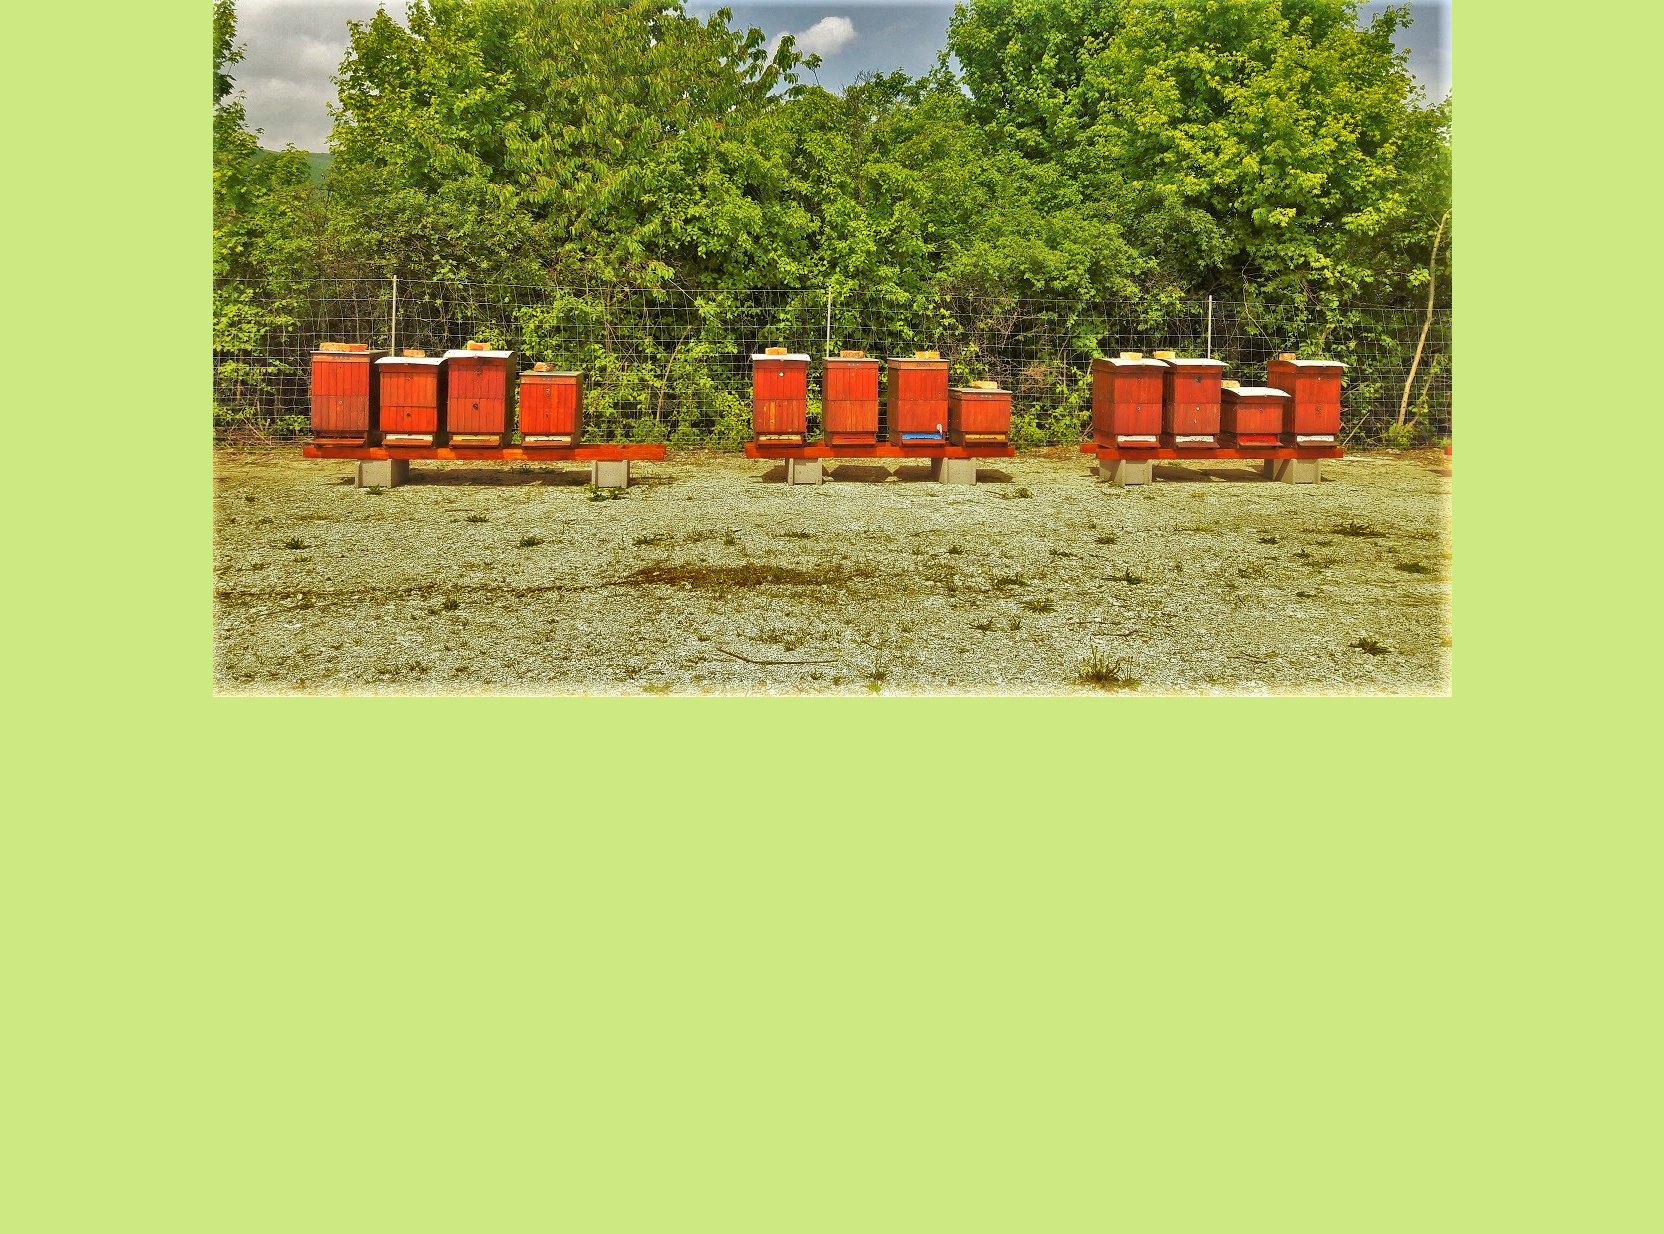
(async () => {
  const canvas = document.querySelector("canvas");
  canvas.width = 1664;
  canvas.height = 1234;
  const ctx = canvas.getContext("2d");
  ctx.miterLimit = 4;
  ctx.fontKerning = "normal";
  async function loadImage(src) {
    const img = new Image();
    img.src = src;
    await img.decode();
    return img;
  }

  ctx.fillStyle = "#ccea81";
  ctx.fillRect(0, 0, 1664, 1234);
  ctx.drawImage(await loadImage("img/1.png"), 213, 0, 1239, 697);
})();
